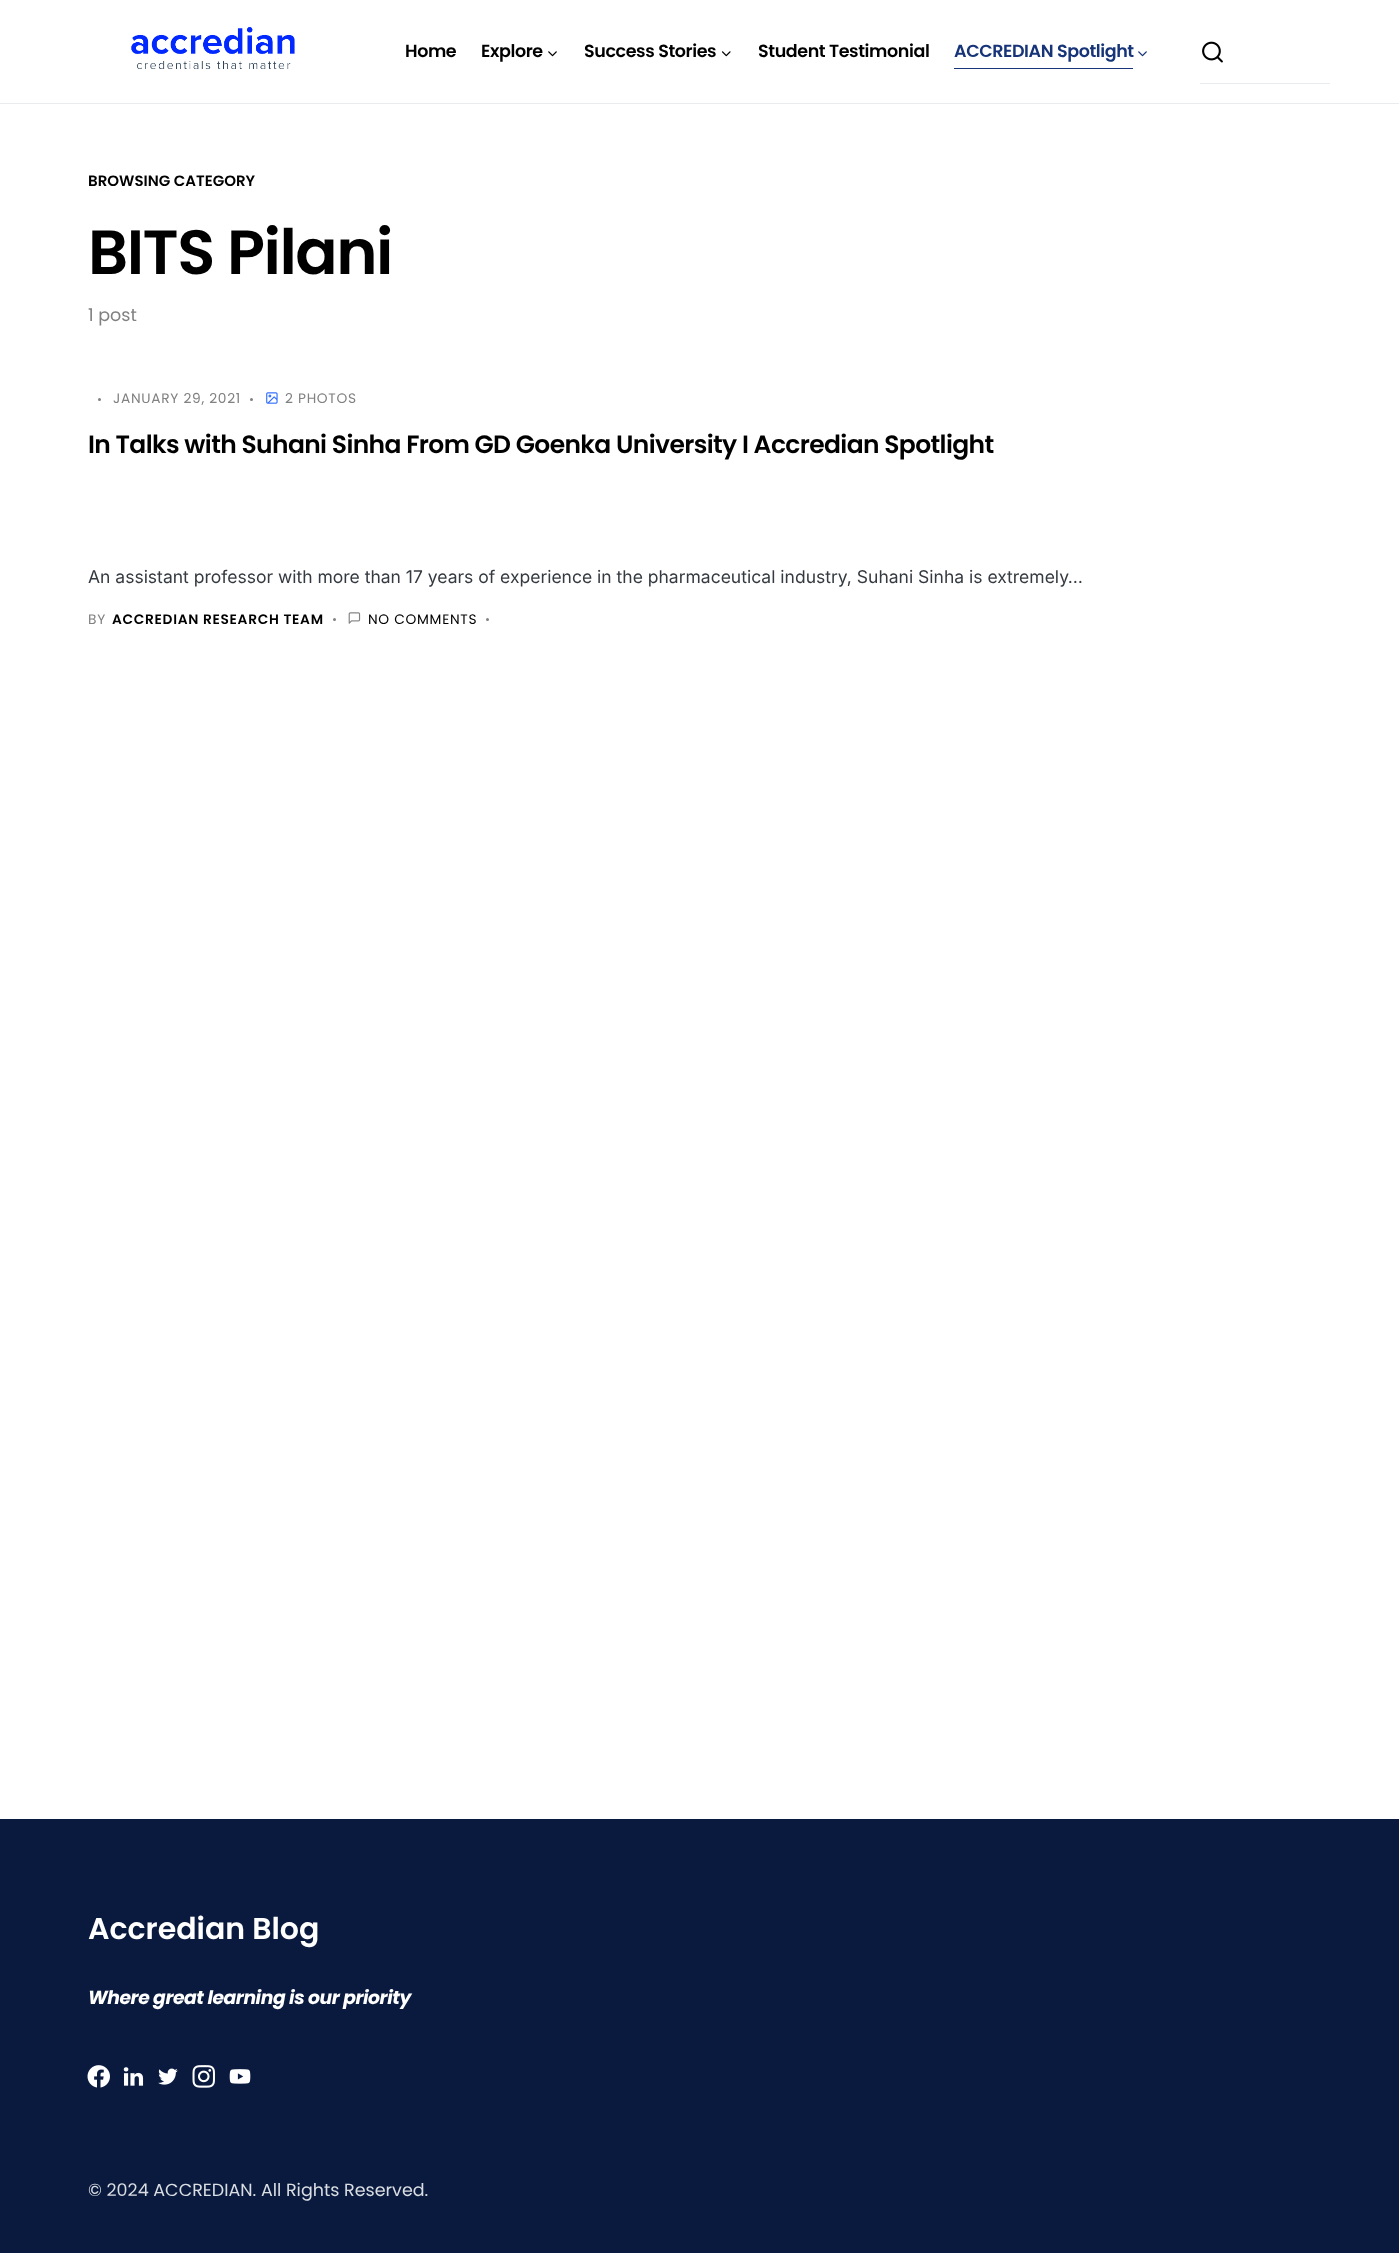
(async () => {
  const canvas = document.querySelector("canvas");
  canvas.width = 1399;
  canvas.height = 2253;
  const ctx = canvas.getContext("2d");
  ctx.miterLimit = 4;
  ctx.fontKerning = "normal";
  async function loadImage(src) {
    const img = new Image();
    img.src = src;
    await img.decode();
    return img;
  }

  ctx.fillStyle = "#ffffff";
  ctx.fillRect(0, 0, 1399, 2253);
  ctx.fillStyle = "#e9ecef";
  ctx.fillRect(0, 103, 1399, 1);
  ctx.drawImage(await loadImage("img/1.png"), 131, 27, 164, 43);
  ctx.drawImage(await loadImage("img/2.png"), 548, 51, 9, 6);
  ctx.drawImage(await loadImage("img/3.png"), 721, 51, 10, 6);
  ctx.fillStyle = "#163477";
  ctx.fillRect(954, 68, 179, 1);
  ctx.drawImage(await loadImage("img/4.png"), 1138, 51, 9, 6);
  ctx.fillStyle = "#e9ecef";
  ctx.fillRect(1200, 83, 130, 1);
  ctx.drawImage(await loadImage("img/5.png"), 1202, 41, 21, 22);
  ctx.fillStyle = "#818181";
  ctx.beginPath();
  ctx.arc(99.5, 399.5, 1.5, 0, Math.PI * 2);
  ctx.fill();
  ctx.beginPath();
  ctx.arc(251.5, 399.5, 1.5, 0, Math.PI * 2);
  ctx.fill();
  ctx.drawImage(await loadImage("img/6.png"), 266, 392, 12, 12);
  ctx.beginPath();
  ctx.arc(334.5, 619.5, 1.5, 0, Math.PI * 2);
  ctx.fill();
  ctx.drawImage(await loadImage("img/7.png"), 348, 612, 13, 12);
  ctx.beginPath();
  ctx.arc(487.5, 619.5, 1.5, 0, Math.PI * 2);
  ctx.fill();
  ctx.fillStyle = "#091a3e";
  ctx.fillRect(0, 1819, 1399, 434);
  ctx.drawImage(await loadImage("img/8.png"), 87, 2065, 23, 23);
  ctx.drawImage(await loadImage("img/9.png"), 123, 2067, 21, 19);
  ctx.drawImage(await loadImage("img/10.png"), 158, 2068, 20, 17);
  ctx.drawImage(await loadImage("img/11.png"), 192, 2065, 23, 23);
  ctx.drawImage(await loadImage("img/12.png"), 229, 2069, 22, 15);
  ctx.letterSpacing = "-0.4px";
  ctx.font = "600 17.5px Poppins";
  ctx.fillStyle = "#000000";
  for (const [text, x, y] of [
    ["Home", 405, 57],
    ["Explore", 481, 57],
    ["Success Stories", 584, 57],
    ["Student Testimonial", 758, 57],
  ]) {
    ctx.fillText(text, x, y);
  }
  ctx.fillStyle = "#163477";
  ctx.fillText("ACCREDIAN Spotlight", 954, 57);
  ctx.letterSpacing = "0px";
  ctx.font = "600 15px Poppins";
  ctx.fillStyle = "#000000";
  ctx.fillText("BROWSING CATEGORY", 88, 186);
  ctx.letterSpacing = "-1.5px";
  ctx.font = "600 62.5px Poppins";
  ctx.fillText("BITS Pilani", 88, 274);
  ctx.letterSpacing = "0px";
  ctx.font = "17.5px Poppins";
  ctx.fillStyle = "#818181";
  ctx.fillText("1 post", 88, 321);
  ctx.letterSpacing = "0.7px";
  ctx.font = "13.75px Poppins";
  ctx.fillText("JANUARY 29, 2021", 113, 403);
  ctx.fillText("2 PHOTOS", 285, 403);
  ctx.letterSpacing = "-0.62px";
  ctx.font = "600 25px Poppins";
  ctx.fillStyle = "#000000";
  ctx.fillText("In Talks with Suhani Sinha From GD Goenka University I Accredian Spotlight", 88, 453);
  ctx.letterSpacing = "0px";
  ctx.font = "17.5px Inter";
  ctx.fillStyle = "#343a40";
  ctx.fillText("An assistant professor with more than 17 years of experience in the pharmaceutical industry, Suhani Sinha is extremely…", 88, 583);
  ctx.letterSpacing = "0.7px";
  ctx.font = "13.75px Poppins";
  ctx.fillStyle = "#818181";
  ctx.fillText("BY", 88, 624);
  ctx.font = "600 13.75px Poppins";
  ctx.fillStyle = "#000000";
  ctx.fillText("ACCREDIAN RESEARCH TEAM", 112, 624);
  ctx.font = "13.75px Poppins";
  ctx.fillText("NO COMMENTS", 368, 624);
  ctx.letterSpacing = "0px";
  ctx.font = "600 30px Poppins";
  ctx.fillStyle = "#ffffff";
  ctx.fillText("Accredian Blog", 88, 1939);
  ctx.letterSpacing = "-0.45px";
  ctx.font = "italic bold 18.75px Poppins";
  ctx.fillText("Where great learning is our priority", 88, 2004);
  ctx.letterSpacing = "0px";
  ctx.font = "17.5px Poppins";
  ctx.fillStyle = "#dadde2";
  ctx.fillText("© 2024 ACCREDIAN. All Rights Reserved.", 88, 2196);
})();
